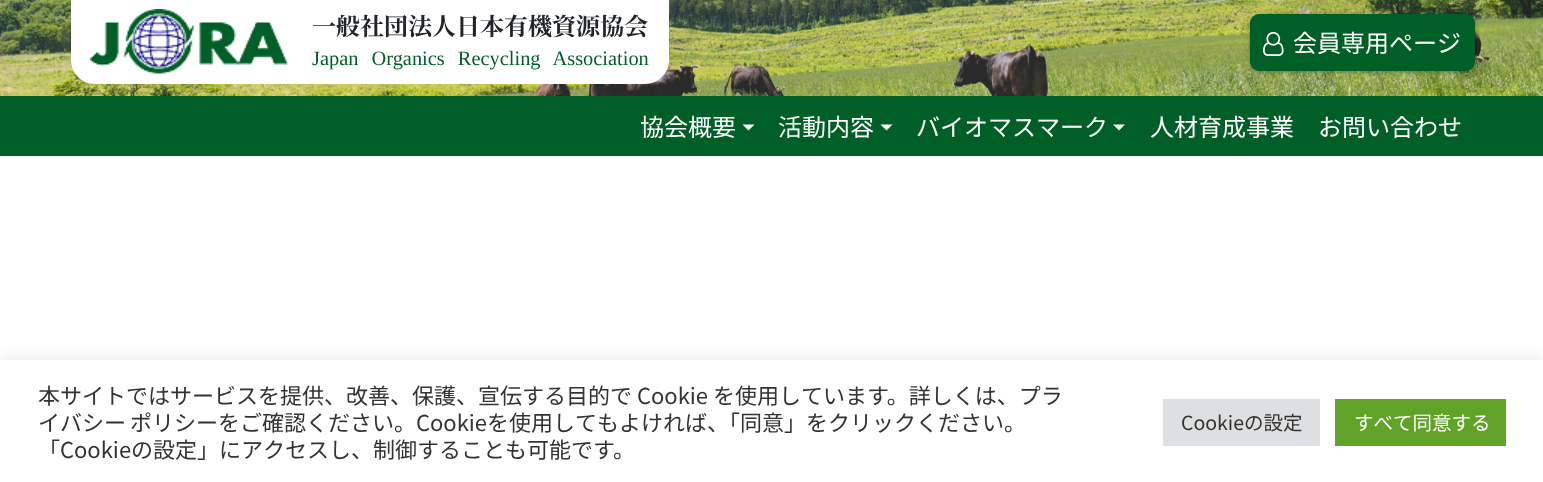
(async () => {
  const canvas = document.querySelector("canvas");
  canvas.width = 1543;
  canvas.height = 482;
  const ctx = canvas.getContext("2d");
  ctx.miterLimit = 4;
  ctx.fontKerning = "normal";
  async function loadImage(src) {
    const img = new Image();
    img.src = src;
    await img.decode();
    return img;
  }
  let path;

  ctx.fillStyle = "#ffffff";
  ctx.fillRect(0, 0, 1543, 482);
  ctx.drawImage(await loadImage("img/1.png"), 0, 0, 1543, 96);
  ctx.beginPath();
  ctx.roundRect(71, 0, 598, 84, [0, 0, 24, 24]);
  ctx.fill();
  ctx.drawImage(await loadImage("img/2.png"), 90, 9, 199, 65);
  ctx.fillStyle = "rgba(0, 0, 0, 0.3)";
  ctx.filter = "blur(2px)";
  ctx.beginPath();
  ctx.roundRect(1250, 15, 225, 57, 9);
  ctx.fill();
  ctx.filter = "none";
  ctx.fillStyle = "#005f26";
  ctx.beginPath();
  ctx.roundRect(1251, 15, 223, 55, 8);
  ctx.fill();
  ctx.strokeStyle = "#005f26";
  ctx.lineWidth = 2;
  ctx.stroke();
  ctx.drawImage(await loadImage("img/3.png"), 1263, 31, 21, 25);
  ctx.fillRect(0, 96, 1543, 60);
  ctx.fillStyle = "#ffffff";
  path = new Path2D("M742.5 124.5H754.5L748.5 130.5Z");
  ctx.fill(path);
  path = new Path2D("M880.5 124.5H892.5L886.5 130.5Z");
  ctx.fill(path);
  path = new Path2D("M1113 124.5H1125L1119 130.5Z");
  ctx.fill(path);
  ctx.fillStyle = "rgba(172, 171, 171, 0.3)";
  ctx.filter = "blur(7.5px)";
  ctx.beginPath();
  ctx.rect(0, 359, 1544, 123);
  ctx.fill();
  ctx.filter = "none";
  for (const [x, y, w, h, color] of [
    [0, 360, 1543, 122, "#ffffff"],
    [1163, 399, 157, 47, "#dedfe0"],
    [1335, 399, 171, 47, "#61a229"],
  ]) {
    ctx.fillStyle = color;
    ctx.fillRect(x, y, w, h);
  }
  ctx.font = "200 24px Noto Serif JP";
  ctx.fillStyle = "#212529";
  ctx.fillText("一般社団法人日本有機資源協会", 312, 35);
  ctx.wordSpacing = "8px";
  ctx.font = "20.4px Liberation Serif";
  ctx.fillStyle = "#005f26";
  ctx.fillText("Japan Organics Recycling Association", 312, 65);
  ctx.wordSpacing = "0px";
  ctx.font = "24px Noto Sans JP";
  ctx.fillStyle = "#ffffff";
  for (const [text, x, y] of [
    ["会員専用ページ", 1293, 52],
    ["協会概要", 640, 136],
    ["活動内容", 778, 136],
    ["バイオマスマーク", 916, 136],
    ["人材育成事業", 1150, 136],
    ["お問い合わせ", 1318, 136],
  ]) {
    ctx.fillText(text, x, y);
  }
  ctx.font = "22px Noto Sans JP";
  ctx.fillStyle = "#333333";
  ctx.fillText("本サイトではサービスを提供、改善、保護、宣伝する目的で Cookie を使用しています。詳しくは、プラ", 38, 404);
  ctx.wordSpacing = "-1px";
  ctx.fillText("イバシー ポリシーをご確認ください。Cookieを使用してもよければ、「同意」をクリックください。", 38, 431);
  ctx.wordSpacing = "0px";
  ctx.fillText("「Cookieの設定」にアクセスし、制御することも可能です。", 38, 458);
  ctx.font = "19.5px Noto Sans JP";
  ctx.fillText("Cookieの設定", 1181, 430);
  ctx.fillStyle = "#ffffff";
  ctx.fillText("すべて同意する", 1354, 430);
})();
